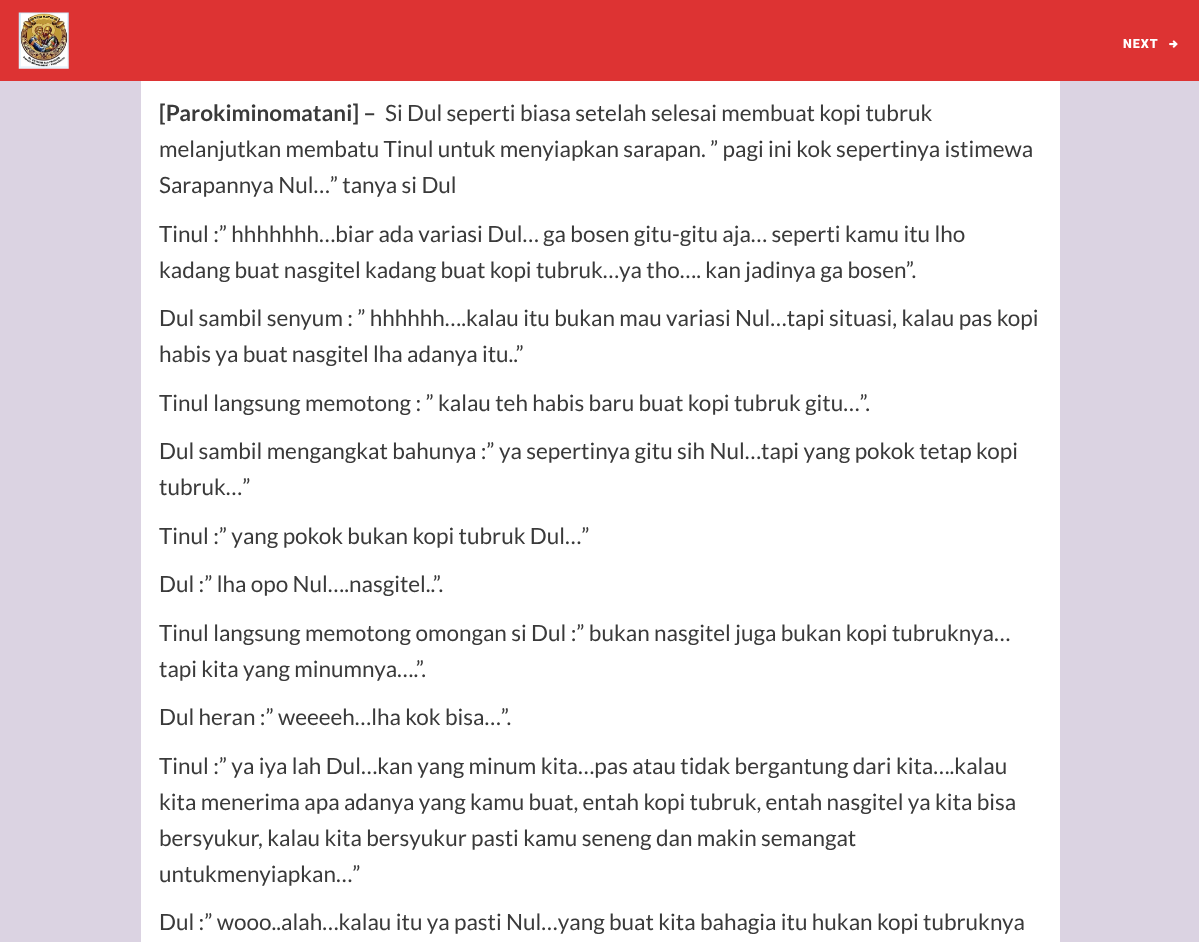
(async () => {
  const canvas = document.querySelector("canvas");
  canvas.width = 1199;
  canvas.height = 942;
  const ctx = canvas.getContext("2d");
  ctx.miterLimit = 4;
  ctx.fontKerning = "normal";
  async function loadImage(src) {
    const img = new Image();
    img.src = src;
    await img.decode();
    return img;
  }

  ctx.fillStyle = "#dbd3e2";
  ctx.fillRect(0, 0, 1199, 942);
  ctx.fillStyle = "#dd3333";
  ctx.fillRect(0, 0, 1199, 81);
  ctx.drawImage(await loadImage("img/1.png"), 18, 12, 51, 57);
  ctx.drawImage(await loadImage("img/2.png"), 1169, 40, 9, 8);
  ctx.fillStyle = "#ffffff";
  ctx.fillRect(141, 81, 919, 861);
  ctx.letterSpacing = "1px";
  ctx.font = "900 12.5px Roboto";
  ctx.fillText("NEXT", 1123, 48);
  ctx.letterSpacing = "0px";
  ctx.font = "bold 22.5px Lato";
  ctx.fillStyle = "#3a3a3a";
  ctx.fillText("[Parokiminomatani] –", 159, 121);
  ctx.font = "22.5px Lato";
  for (const [text, x, y] of [
    ["Si Dul seperti biasa setelah selesai membuat kopi tubruk", 385, 121],
    ["melanjutkan membatu Tinul untuk menyiapkan sarapan. ” pagi ini kok sepertinya istimewa", 159, 157],
    ["Sarapannya Nul…” tanya si Dul", 159, 193],
    ["Tinul :” hhhhhhh…biar ada variasi Dul… ga bosen gitu-gitu aja… seperti kamu itu lho", 159, 242],
    ["kadang buat nasgitel kadang buat kopi tubruk…ya tho…. kan jadinya ga bosen”.", 159, 278],
    ["Dul sambil senyum : ” hhhhhh….kalau itu bukan mau variasi Nul…tapi situasi, kalau pas kopi", 159, 326],
    ["habis ya buat nasgitel lha adanya itu..”", 159, 362],
    ["Tinul langsung memotong : ” kalau teh habis baru buat kopi tubruk gitu…”.", 159, 411],
    ["Dul sambil mengangkat bahunya :” ya sepertinya gitu sih Nul…tapi yang pokok tetap kopi", 159, 459],
    ["tubruk…”", 159, 495],
    ["Tinul :” yang pokok bukan kopi tubruk Dul…”", 159, 544],
    ["Dul :” lha opo Nul….nasgitel..”.", 159, 592],
    ["Tinul langsung memotong omongan si Dul :” bukan nasgitel juga bukan kopi tubruknya…", 159, 641],
    ["tapi kita yang minumnya….”.", 159, 677],
    ["Dul heran :” weeeeh…lha kok bisa…”.", 159, 725],
    ["Tinul :” ya iya lah Dul…kan yang minum kita…pas atau tidak bergantung dari kita….kalau", 159, 774],
    ["kita menerima apa adanya yang kamu buat, entah kopi tubruk, entah nasgitel ya kita bisa", 159, 810],
    ["bersyukur, kalau kita bersyukur pasti kamu seneng dan makin semangat", 159, 846],
    ["untukmenyiapkan…”", 159, 882],
    ["Dul :” wooo..alah…kalau itu ya pasti Nul…yang buat kita bahagia itu hukan kopi tubruknya", 159, 930],
  ]) {
    ctx.fillText(text, x, y);
  }
})();
